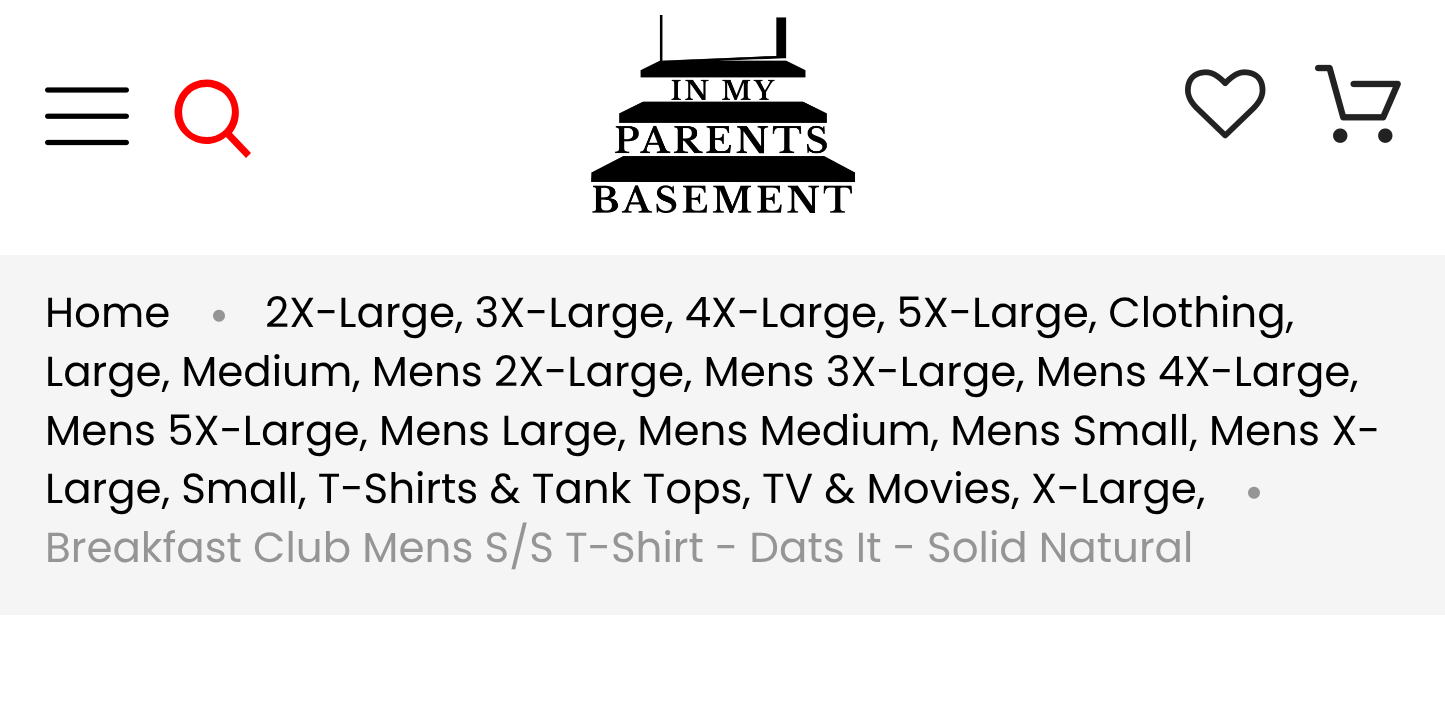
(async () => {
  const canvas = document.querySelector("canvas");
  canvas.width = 1445;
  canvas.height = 725;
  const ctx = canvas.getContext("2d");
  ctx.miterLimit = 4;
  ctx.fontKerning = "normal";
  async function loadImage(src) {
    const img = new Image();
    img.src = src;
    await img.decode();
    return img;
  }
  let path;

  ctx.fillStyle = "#ffffff";
  ctx.fillRect(0, 0, 1445, 725);
  ctx.drawImage(await loadImage("img/1.png"), 45, 87, 84, 59);
  ctx.fillStyle = "#ff0000";
  path = new Path2D("M232 133C244 118 240 94 223 84C215 79 204 78 194 82C187 85 181 91 178 98C163 128 200 158 226 137L246 158L251 153ZM207 137C174 137 174 87 207 87C212 87 217 89 222 92C241 106 231 137 207 137Z");
  ctx.fill(path);
  ctx.drawImage(await loadImage("img/2.png"), 591, 15, 264, 198);
  ctx.drawImage(await loadImage("img/3.png"), 1185, 69, 81, 70);
  ctx.drawImage(await loadImage("img/4.png"), 1314, 64, 87, 79);
  ctx.fillStyle = "#f5f5f5";
  ctx.fillRect(0, 255, 1445, 360);
  ctx.drawImage(await loadImage("img/5.png"), 213, 309, 12, 13);
  ctx.drawImage(await loadImage("img/5.png"), 1248, 486, 12, 13);
  ctx.font = "42px Poppins";
  ctx.fillStyle = "#000000";
  for (const [text, x, y] of [
    ["Home", 45, 327],
    ["2X-Large, 3X-Large, 4X-Large, 5X-Large, Clothing,", 265, 327],
    ["Large, Medium, Mens 2X-Large, Mens 3X-Large, Mens 4X-Large,", 45, 386],
    ["Mens 5X-Large, Mens Large, Mens Medium, Mens Small, Mens X-", 45, 445],
    ["Large, Small, T-Shirts & Tank Tops, TV & Movies, X-Large,", 45, 503],
  ]) {
    ctx.fillText(text, x, y);
  }
  ctx.fillStyle = "#959595";
  ctx.fillText("Breakfast Club Mens S/S T-Shirt - Dats It - Solid Natural", 45, 562);
})();
